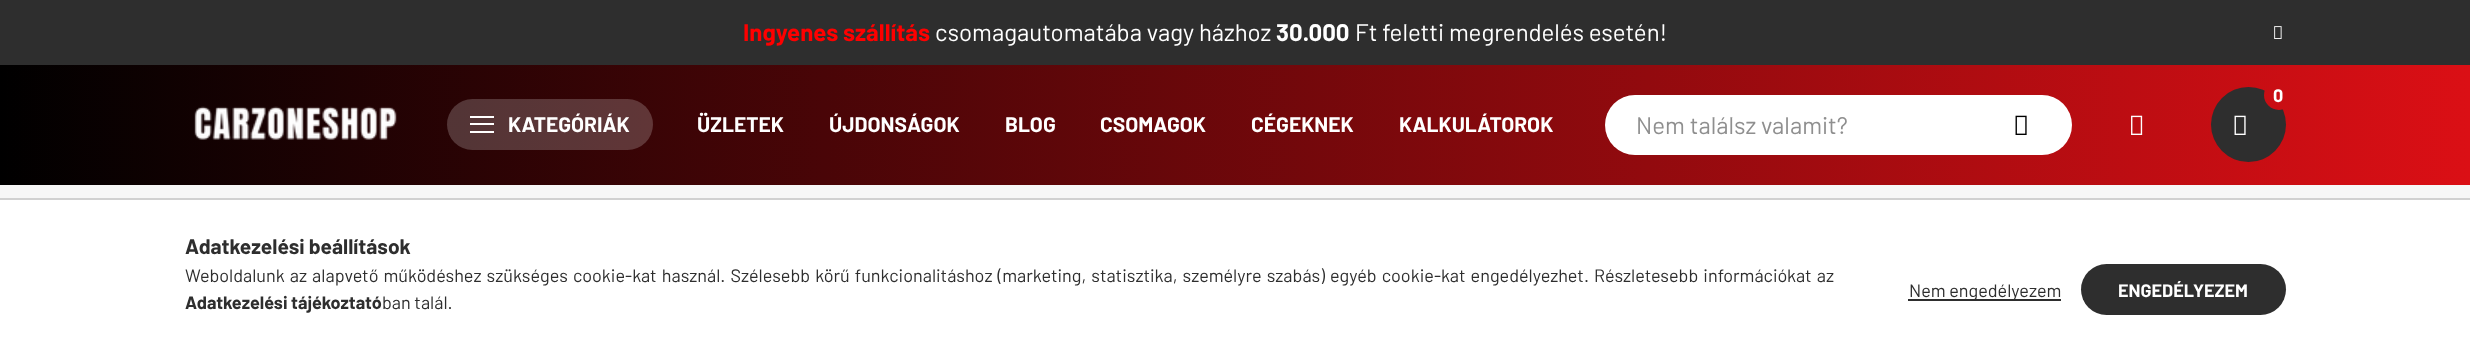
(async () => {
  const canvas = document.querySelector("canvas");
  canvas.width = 2470;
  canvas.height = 345;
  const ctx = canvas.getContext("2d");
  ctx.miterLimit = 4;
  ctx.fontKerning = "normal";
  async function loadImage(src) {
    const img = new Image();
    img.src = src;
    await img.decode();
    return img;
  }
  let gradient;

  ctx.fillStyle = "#f7f7f7";
  ctx.fillRect(0, 0, 2470, 345);
  ctx.fillStyle = "#2e2e2e";
  ctx.fillRect(0, 0, 2470, 65);
  ctx.drawImage(await loadImage("img/1.png"), 2274, 26, 8, 13);
  gradient = ctx.createLinearGradient(0, 173, 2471, 172);
  gradient.addColorStop(0, "#000000");
  gradient.addColorStop(1, "#db0f15");
  ctx.fillStyle = gradient;
  ctx.fillRect(0, 65, 2470, 120);
  ctx.drawImage(await loadImage("img/2.png"), 194, 106, 203, 34);
  ctx.fillStyle = "rgba(255, 255, 255, 0.2)";
  ctx.beginPath();
  ctx.roundRect(447, 99, 206, 51, 25.5);
  ctx.fill();
  for (const [x, y, w, h, color] of [
    [470, 116, 24, 2, "#ffffff"],
    [470, 123, 24, 2, "#ffffff"],
    [470, 131, 24, 2, "#ffffff"],
  ]) {
    ctx.fillStyle = color;
    ctx.fillRect(x, y, w, h);
  }
  ctx.fillStyle = "#2e2e2e";
  ctx.beginPath();
  ctx.arc(2248.5, 124.5, 37.5, 0, Math.PI * 2);
  ctx.fill();
  gradient = ctx.createLinearGradient(0, 173, 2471, 172);
  gradient.addColorStop(0, "#000000");
  gradient.addColorStop(1, "#db0f15");
  ctx.fillStyle = gradient;
  ctx.beginPath();
  ctx.arc(2279, 95, 15, 0, Math.PI * 2);
  ctx.fill();
  ctx.drawImage(await loadImage("img/3.png"), 2234, 115, 12, 20);
  ctx.fillStyle = "#ffffff";
  ctx.beginPath();
  ctx.roundRect(1605, 95, 467, 60, 30);
  ctx.fill();
  ctx.drawImage(await loadImage("img/4.png"), 2015, 115, 12, 20);
  ctx.drawImage(await loadImage("img/5.png"), 2131, 115, 12, 20);
  for (const [x, y, w, h, color] of [
    [0, 200, 2470, 145, "#ffffff"],
    [0, 198, 2470, 2, "#d1d1d1"],
    [1908, 299, 153, 2, "#2e2e2e"],
  ]) {
    ctx.fillStyle = color;
    ctx.fillRect(x, y, w, h);
  }
  gradient = ctx.createLinearGradient(2081, 290, 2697, 290);
  gradient.addColorStop(0.33, "#2e2e2e");
  gradient.addColorStop(0.67, "#ff0009");
  ctx.fillStyle = gradient;
  ctx.beginPath();
  ctx.roundRect(2081, 264, 205, 51, 25.5);
  ctx.fill();
  ctx.font = "bold 24px Barlow";
  ctx.fillStyle = "#ff0000";
  ctx.fillText("Ingyenes szállítás", 743, 41);
  ctx.font = "24px Barlow";
  ctx.fillStyle = "#ffffff";
  ctx.fillText("csomagautomatába vagy házhoz", 935, 41);
  ctx.font = "bold 24px Barlow";
  ctx.fillText("30.000", 1276, 41);
  ctx.font = "24px Barlow";
  ctx.fillText("Ft feletti megrendelés esetén!", 1355, 41);
  ctx.font = "bold 21px Barlow";
  for (const [text, x, y] of [
    ["KATEGÓRIÁK", 508, 132],
    ["ÜZLETEK", 697, 132],
    ["ÚJDONSÁGOK", 829, 132],
    ["BLOG", 1005, 132],
    ["CSOMAGOK", 1100, 132],
    ["CÉGEKNEK", 1251, 132],
    ["KALKULÁTOROK", 1399, 132],
  ]) {
    ctx.fillText(text, x, y);
  }
  ctx.font = "bold 18px Barlow";
  ctx.fillText("0", 2273, 102);
  ctx.font = "24px Barlow";
  ctx.fillStyle = "#8f8f8f";
  ctx.fillText("Nem találsz valamit?", 1636, 134);
  ctx.font = "bold 21px Barlow";
  ctx.fillStyle = "#2e2e2e";
  ctx.fillText("Adatkezelési beállítások", 185, 254);
  ctx.wordSpacing = "1.5px";
  ctx.font = "18px Barlow";
  ctx.fillText("Weboldalunk az alapvető működéshez szükséges cookie-kat használ. Szélesebb körű funkcionalitáshoz (marketing, statisztika, személyre szabás) egyéb cookie-kat engedélyezhet. Részletesebb információkat az", 185, 282);
  ctx.wordSpacing = "0px";
  ctx.font = "bold 18px Barlow";
  ctx.fillText("Adatkezelési tájékoztató", 185, 309);
  ctx.font = "18px Barlow";
  ctx.fillText("ban talál.", 382, 309);
  ctx.fillText("Nem engedélyezem", 1909, 297);
  ctx.font = "bold 18px Barlow";
  ctx.fillStyle = "#ffffff";
  ctx.fillText("ENGEDÉLYEZEM", 2118, 297);
})();
